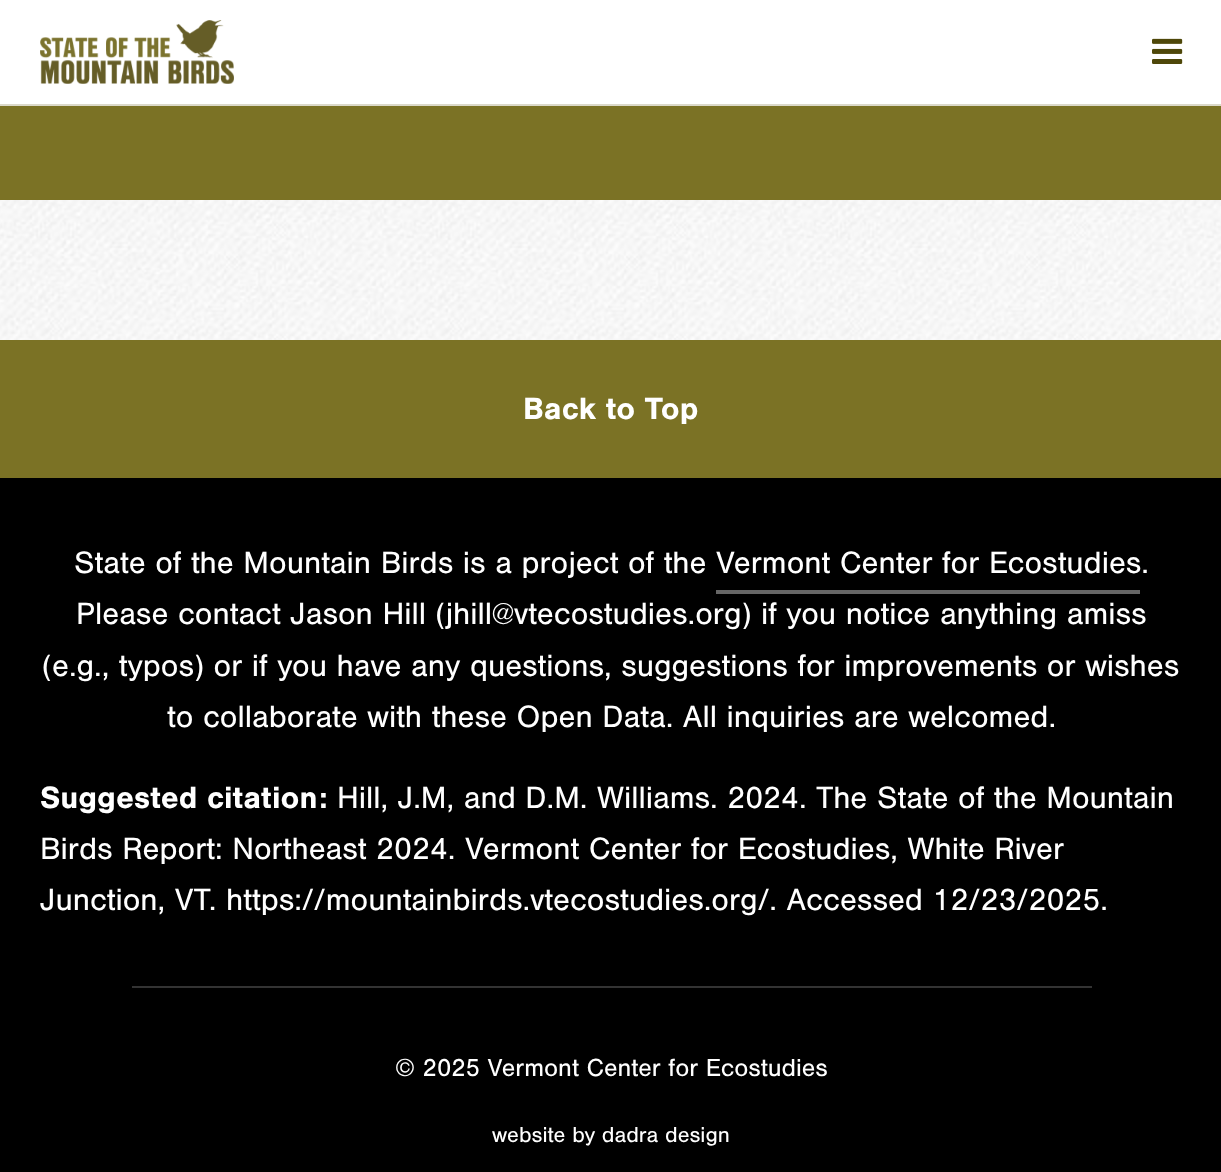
(async () => {
  const canvas = document.querySelector("canvas");
  canvas.width = 1221;
  canvas.height = 1172;
  const ctx = canvas.getContext("2d");
  ctx.miterLimit = 4;
  ctx.fontKerning = "normal";
  async function loadImage(src) {
    const img = new Image();
    img.src = src;
    await img.decode();
    return img;
  }

  ctx.fillStyle = "#ffffff";
  ctx.fillRect(0, 0, 1221, 1172);
  ctx.drawImage(await loadImage("img/1.png"), 0, 200, 1221, 140);
  ctx.fillStyle = "#dbd9ca";
  ctx.fillRect(0, 104, 1221, 2);
  ctx.drawImage(await loadImage("img/2.png"), 40, 20, 194, 64);
  ctx.drawImage(await loadImage("img/3.png"), 1152, 38, 31, 26);
  for (const [x, y, w, h, color] of [
    [0, 106, 1221, 94, "#7b7225"],
    [0, 478, 1221, 694, "#000000"],
    [0, 340, 1221, 138, "#7b7225"],
    [716, 590, 424, 4, "#666666"],
    [132, 986, 960, 2, "#333333"],
  ]) {
    ctx.fillStyle = color;
    ctx.fillRect(x, y, w, h);
  }
  ctx.font = "bold 32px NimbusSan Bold";
  ctx.fillStyle = "#ffffff";
  ctx.fillText("Back to Top", 523, 419);
  ctx.font = "32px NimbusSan";
  for (const [text, x, y] of [
    ["State of the Mountain Birds is a project of the Vermont Center for Ecostudies.", 74, 573],
    ["Please contact Jason Hill (jhill@vtecostudies.org) if you notice anything amiss", 76, 624],
    ["(e.g., typos) or if you have any questions, suggestions for improvements or wishes", 42, 676],
    ["to collaborate with these Open Data. All inquiries are welcomed.", 167, 727],
  ]) {
    ctx.fillText(text, x, y);
  }
  ctx.font = "bold 32px NimbusSan Bold";
  ctx.fillText("Suggested citation:", 40, 808);
  ctx.font = "32px NimbusSan";
  for (const [text, x, y] of [
    ["Hill, J.M, and D.M. Williams. 2024. The State of the Mountain", 337, 808],
    ["Birds Report: Northeast 2024. Vermont Center for Ecostudies, White River", 40, 859],
    ["Junction, VT. https://mountainbirds.vtecostudies.org/. Accessed 12/23/2025.", 40, 910],
  ]) {
    ctx.fillText(text, x, y);
  }
  ctx.font = "25.6px NimbusSan";
  ctx.fillText("© 2025 Vermont Center for Ecostudies", 395, 1076);
  ctx.font = "22.4px NimbusSan";
  ctx.fillText("website by dadra design", 492, 1142);
})();
